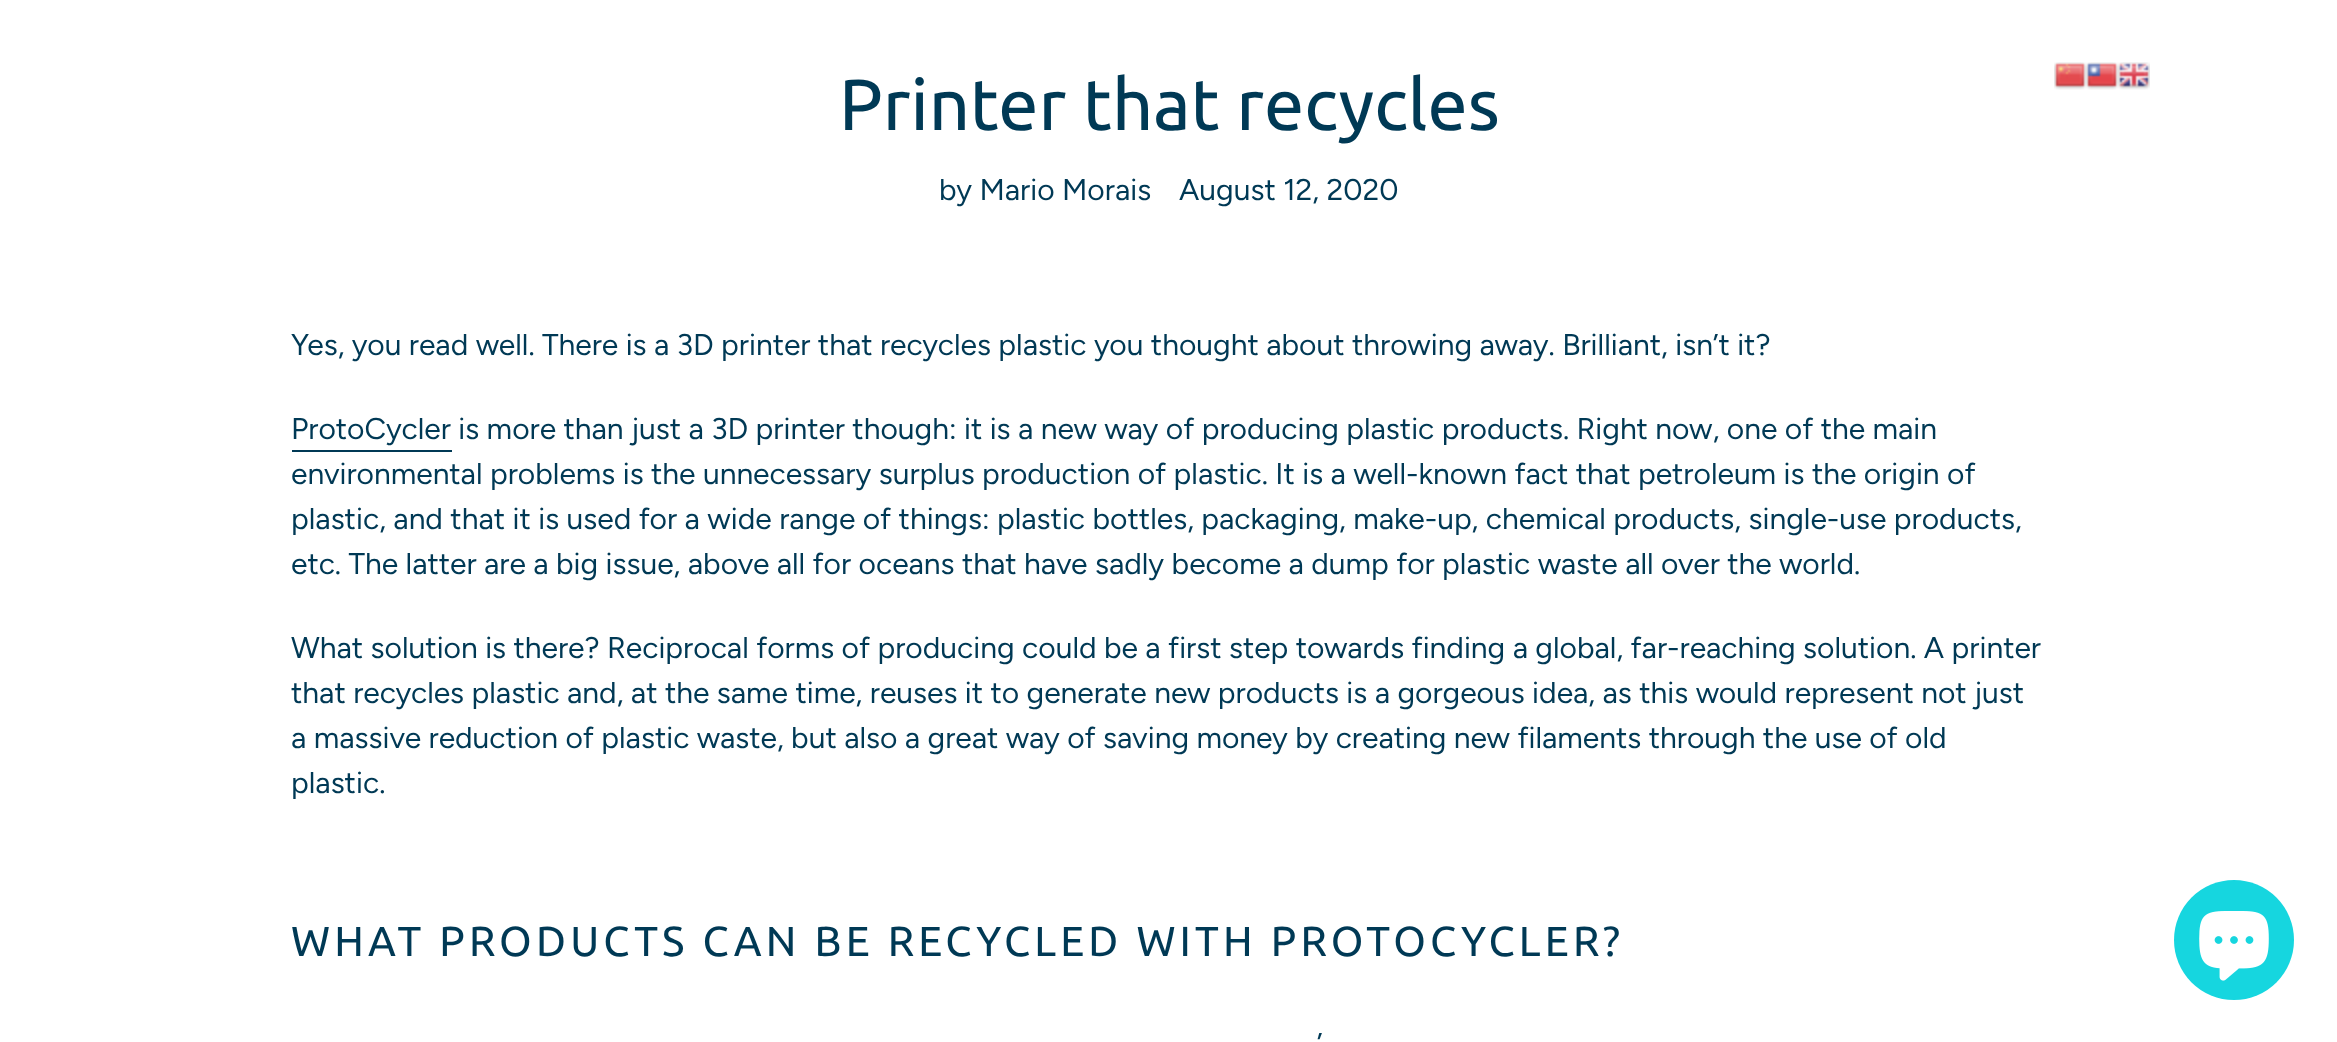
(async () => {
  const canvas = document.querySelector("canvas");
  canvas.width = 2337;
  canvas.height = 1042;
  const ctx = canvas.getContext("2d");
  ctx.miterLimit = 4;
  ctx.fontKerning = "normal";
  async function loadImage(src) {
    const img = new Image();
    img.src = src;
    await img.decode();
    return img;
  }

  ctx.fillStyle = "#ffffff";
  ctx.fillRect(0, 0, 2337, 1042);
  ctx.fillStyle = "#003955";
  ctx.fillRect(292, 450, 160, 2);
  ctx.drawImage(await loadImage("img/1.png"), 2054, 62, 32, 28);
  ctx.drawImage(await loadImage("img/2.png"), 2086, 62, 32, 28);
  ctx.drawImage(await loadImage("img/3.png"), 2118, 62, 32, 28);
  ctx.fillStyle = "#16d6df";
  ctx.beginPath();
  ctx.arc(2234, 940, 60, 0, Math.PI * 2);
  ctx.fill();
  ctx.drawImage(await loadImage("img/4.png"), 2199, 911, 70, 70);
  ctx.font = "72px Ubuntu";
  ctx.fillStyle = "#003955";
  ctx.fillText("Printer that recycles", 839, 130);
  ctx.font = "30px Figtree";
  for (const [text, x, y] of [
    ["by Mario Morais", 939, 200],
    ["August 12, 2020", 1179, 200],
    ["Yes, you read well. There is a 3D printer that recycles plastic you thought about throwing away. Brilliant, isn’t it?", 291, 355],
    ["ProtoCycler is more than just a 3D printer though: it is a new way of producing plastic products. Right now, one of the main", 291, 439],
    ["environmental problems is the unnecessary surplus production of plastic. It is a well-known fact that petroleum is the origin of", 291, 484],
    ["plastic, and that it is used for a wide range of things: plastic bottles, packaging, make-up, chemical products, single-use products,", 291, 529],
    ["etc. The latter are a big issue, above all for oceans that have sadly become a dump for plastic waste all over the world.", 291, 574],
    ["What solution is there? Reciprocal forms of producing could be a first step towards finding a global, far-reaching solution. A printer", 291, 658],
    ["that recycles plastic and, at the same time, reuses it to generate new products is a gorgeous idea, as this would represent not just", 291, 703],
    ["a massive reduction of plastic waste, but also a great way of saving money by creating new filaments through the use of old", 291, 748],
    ["plastic.", 291, 793],
  ]) {
    ctx.fillText(text, x, y);
  }
  ctx.letterSpacing = "4.2px";
  ctx.font = "42px Ubuntu";
  ctx.fillText("WHAT PRODUCTS CAN BE RECYCLED WITH PROTOCYCLER?", 291, 956);
  ctx.letterSpacing = "0px";
  ctx.font = "30px Figtree";
  ctx.fillText("’", 1317, 1054);
})();
